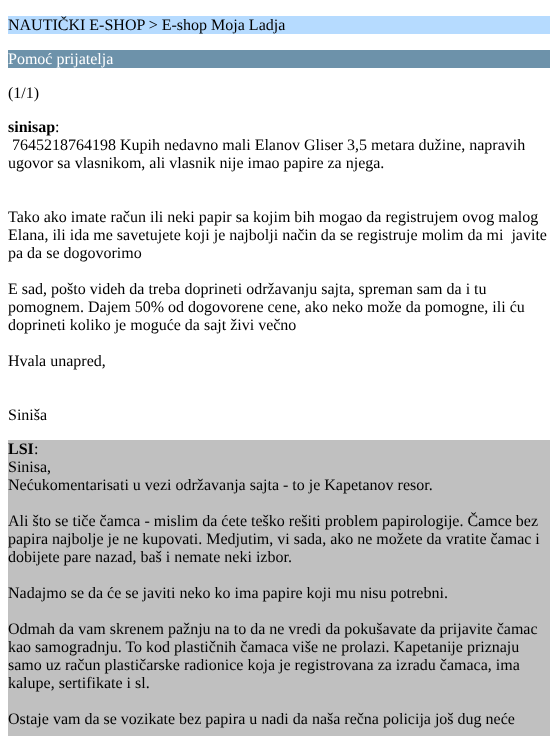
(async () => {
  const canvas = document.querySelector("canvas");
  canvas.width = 558;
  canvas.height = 736;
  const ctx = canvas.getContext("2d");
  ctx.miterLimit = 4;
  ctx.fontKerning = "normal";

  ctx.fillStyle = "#ffffff";
  ctx.fillRect(0, 0, 558, 736);
  for (const [x, y, w, h, color] of [
    [8, 16, 542, 18, "#b6dbff"],
    [8, 50, 542, 18, "#6d92aa"],
    [8, 440, 542, 296, "#c0c0c0"],
  ]) {
    ctx.fillStyle = color;
    ctx.fillRect(x, y, w, h);
  }
  ctx.font = "16px Liberation Serif";
  ctx.fillStyle = "#000000";
  ctx.fillText("NAUTIČKI E-SHOP > E-shop Moja Ladja", 8, 30);
  ctx.fillStyle = "#ffffff";
  ctx.fillText("Pomoć prijatelja", 8, 64);
  ctx.fillStyle = "#000000";
  ctx.fillText("(1/1)", 8, 98);
  ctx.font = "bold 16px Liberation Serif";
  ctx.fillText("sinisap", 8, 132);
  ctx.font = "16px Liberation Serif";
  for (const [text, x, y] of [
    [":", 55, 132],
    ["7645218764198 Kupih nedavno mali Elanov Gliser 3,5 metara dužine, napravih", 12, 150],
    ["ugovor sa vlasnikom, ali vlasnik nije imao papire za njega.", 8, 168],
    ["Tako ako imate račun ili neki papir sa kojim bih mogao da registrujem ovog malog", 8, 222],
    ["Elana, ili ida me savetujete koji je najbolji način da se registruje molim da mi  javite", 8, 240],
    ["pa da se dogovorimo", 8, 258],
    ["E sad, pošto videh da treba doprineti održavanju sajta, spreman sam da i tu", 8, 294],
    ["pomognem. Dajem 50% od dogovorene cene, ako neko može da pomogne, ili ću", 8, 312],
    ["doprineti koliko je moguće da sajt živi večno", 8, 330],
    ["Hvala unapred,", 8, 366],
    ["Siniša", 8, 420],
  ]) {
    ctx.fillText(text, x, y);
  }
  ctx.font = "bold 16px Liberation Serif";
  ctx.fillText("LSI", 8, 454);
  ctx.font = "16px Liberation Serif";
  for (const [text, x, y] of [
    [":", 34, 454],
    ["Sinisa,", 8, 472],
    ["Nećukomentarisati u vezi održavanja sajta - to je Kapetanov resor.", 8, 490],
    ["Ali što se tiče čamca - mislim da ćete teško rešiti problem papirologije. Čamce bez", 8, 526],
    ["papira najbolje je ne kupovati. Medjutim, vi sada, ako ne možete da vratite čamac i", 8, 544],
    ["dobijete pare nazad, baš i nemate neki izbor.", 8, 562],
    ["Nadajmo se da će se javiti neko ko ima papire koji mu nisu potrebni.", 8, 598],
    ["Odmah da vam skrenem pažnju na to da ne vredi da pokušavate da prijavite čamac", 8, 634],
    ["kao samogradnju. To kod plastičnih čamaca više ne prolazi. Kapetanije priznaju", 8, 652],
    ["samo uz račun plastičarske radionice koja je registrovana za izradu čamaca, ima", 8, 670],
    ["kalupe, sertifikate i sl.", 8, 688],
    ["Ostaje vam da se vozikate bez papira u nadi da naša rečna policija još dug neće", 8, 724],
  ]) {
    ctx.fillText(text, x, y);
  }
})();
